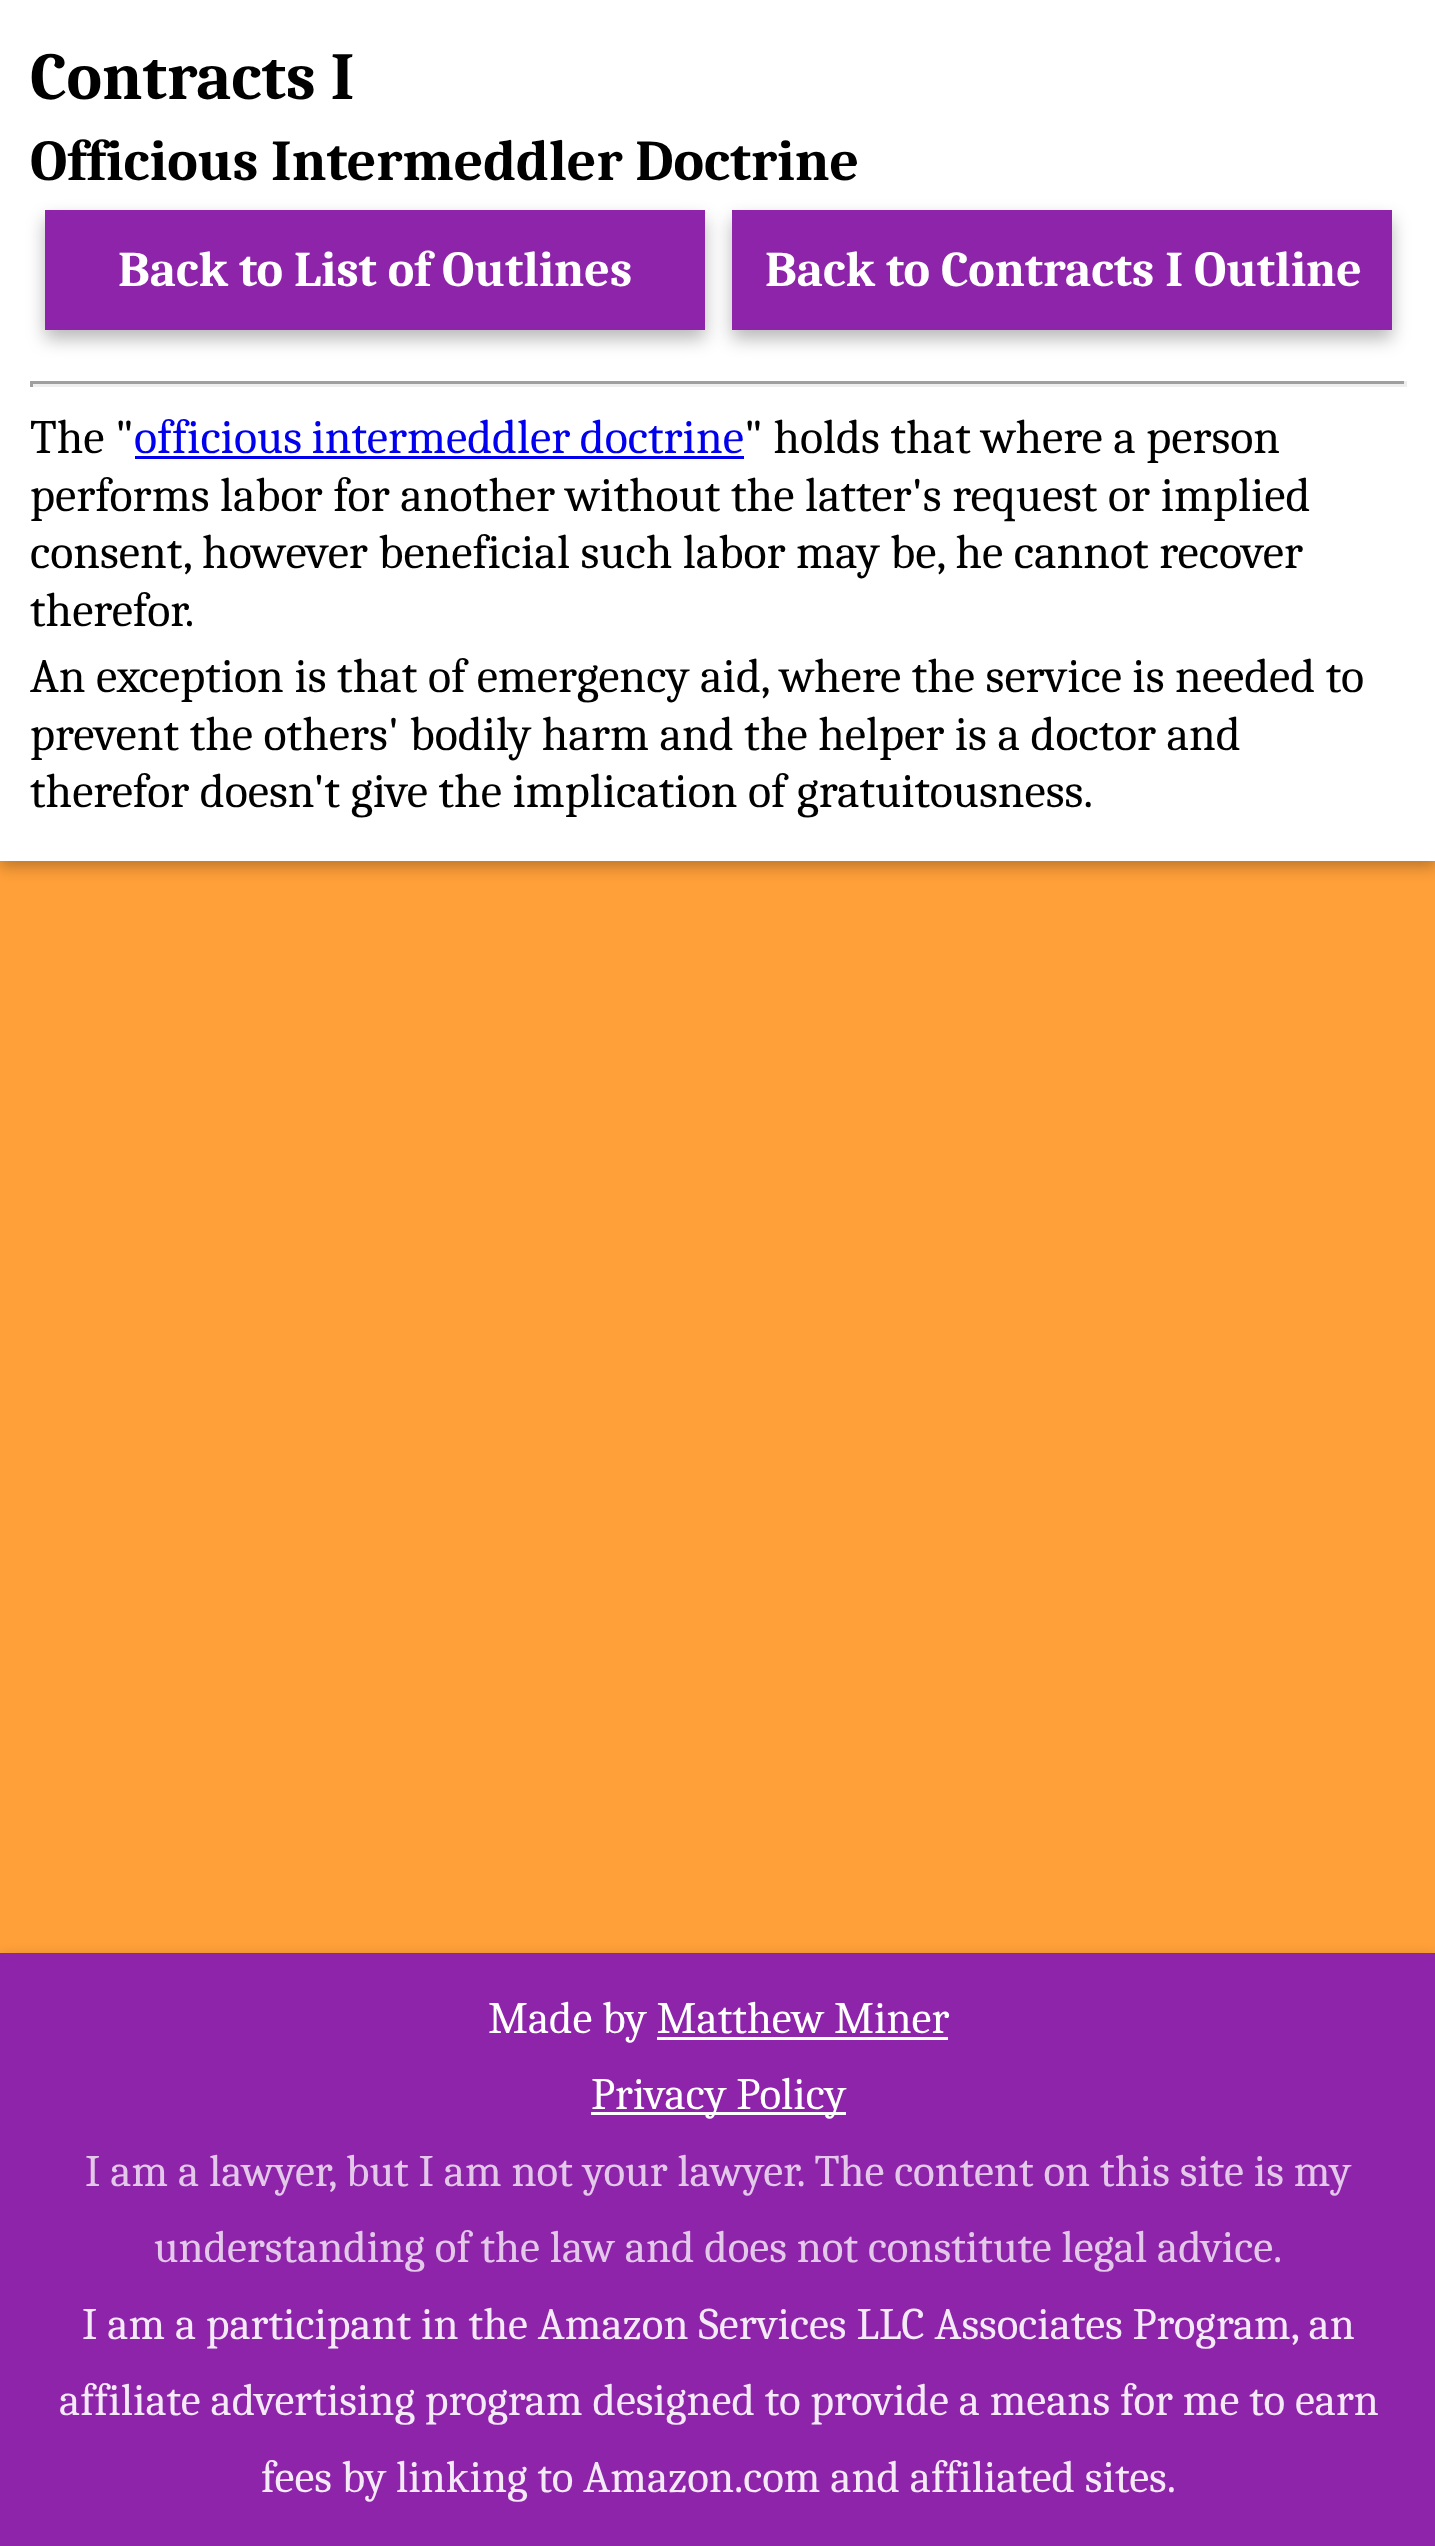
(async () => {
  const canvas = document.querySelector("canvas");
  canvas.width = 1435;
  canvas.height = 2546;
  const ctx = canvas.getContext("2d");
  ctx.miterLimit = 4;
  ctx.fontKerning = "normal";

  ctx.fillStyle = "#ffa039";
  ctx.fillRect(0, 0, 1435, 2546);
  ctx.fillStyle = "rgba(0, 0, 0, 0.26)";
  ctx.filter = "blur(7.5px)";
  ctx.beginPath();
  ctx.rect(0, 6, 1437, 861);
  ctx.fill();
  ctx.filter = "none";
  ctx.fillStyle = "#ffffff";
  ctx.fillRect(0, 0, 1435, 861);
  ctx.fillStyle = "rgba(0, 0, 0, 0.28)";
  ctx.filter = "blur(9px)";
  ctx.beginPath();
  ctx.rect(45, 219, 660, 120);
  ctx.fill();
  ctx.filter = "none";
  ctx.fillStyle = "#8e24aa";
  ctx.fillRect(45, 210, 660, 120);
  ctx.fillStyle = "rgba(0, 0, 0, 0.28)";
  ctx.filter = "blur(9px)";
  ctx.beginPath();
  ctx.rect(732, 219, 660, 120);
  ctx.fill();
  ctx.filter = "none";
  for (const [x, y, w, h, color] of [
    [732, 210, 660, 120, "#8e24aa"],
    [30, 381, 1377, 3, "#9f9f9f"],
    [1404, 381, 3, 6, "#eeeeee"],
    [30, 384, 1377, 3, "#eeeeee"],
    [30, 381, 3, 6, "#9f9f9f"],
    [135, 456, 609, 3, "#0000ee"],
  ]) {
    ctx.fillStyle = color;
    ctx.fillRect(x, y, w, h);
  }
  ctx.fillStyle = "rgba(0, 0, 0, 0.26)";
  ctx.filter = "blur(7.5px)";
  ctx.beginPath();
  ctx.rect(0, 1959, 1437, 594);
  ctx.fill();
  ctx.filter = "none";
  for (const [x, y, w, h, color] of [
    [0, 1953, 1435, 593, "#8e24aa"],
    [657, 2037, 291, 3, "#ffffff"],
    [591, 2112, 255, 3, "#ffffff"],
  ]) {
    ctx.fillStyle = color;
    ctx.fillRect(x, y, w, h);
  }
  ctx.font = "bold 67px Caladea";
  ctx.fillStyle = "#000000";
  ctx.fillText("Contracts I", 30, 99);
  ctx.font = "bold 57.6px Caladea";
  ctx.fillText("Officious Intermeddler Doctrine", 30, 180);
  ctx.font = "bold 50px Caladea";
  ctx.fillStyle = "#ffffff";
  ctx.fillText("Back to List of Outlines", 118, 286);
  ctx.fillText("Back to Contracts I Outline", 765, 286);
  ctx.font = "48px Caladea";
  ctx.fillStyle = "#000000";
  ctx.fillText("The \"", 30, 453);
  ctx.wordSpacing = "-1px";
  ctx.fillStyle = "#0000ee";
  ctx.fillText("officious intermeddler doctrine", 134, 453);
  ctx.wordSpacing = "0px";
  ctx.fillStyle = "#000000";
  for (const [text, x, y] of [
    ["\" holds that where a person", 744, 453],
    ["performs labor for another without the latter's request or implied", 30, 511],
    ["consent, however beneficial such labor may be, he cannot recover", 30, 568],
    ["therefor.", 30, 626],
    ["An exception is that of emergency aid, where the service is needed to", 30, 692],
    ["prevent the others' bodily harm and the helper is a doctor and", 30, 750],
    ["therefor doesn't give the implication of gratuitousness.", 30, 807],
  ]) {
    ctx.fillText(text, x, y);
  }
  ctx.font = "45px Caladea";
  ctx.fillStyle = "#ffffff";
  ctx.fillText("Made by Matthew Miner", 488, 2033);
  ctx.fillText("Privacy Policy", 591, 2109);
  ctx.fillStyle = "#e3c8ea";
  ctx.fillText("I am a lawyer, but I am not your lawyer. The content on this site is my", 85, 2186);
  ctx.fillText("understanding of the law and does not constitute legal advice.", 154, 2262);
  ctx.fillStyle = "#f4e9f7";
  for (const [text, x, y] of [
    ["I am a participant in the Amazon Services LLC Associates Program, an", 82, 2339],
    ["affiliate advertising program designed to provide a means for me to earn", 59, 2415],
    ["fees by linking to Amazon.com and affiliated sites.", 261, 2492],
  ]) {
    ctx.fillText(text, x, y);
  }
})();
